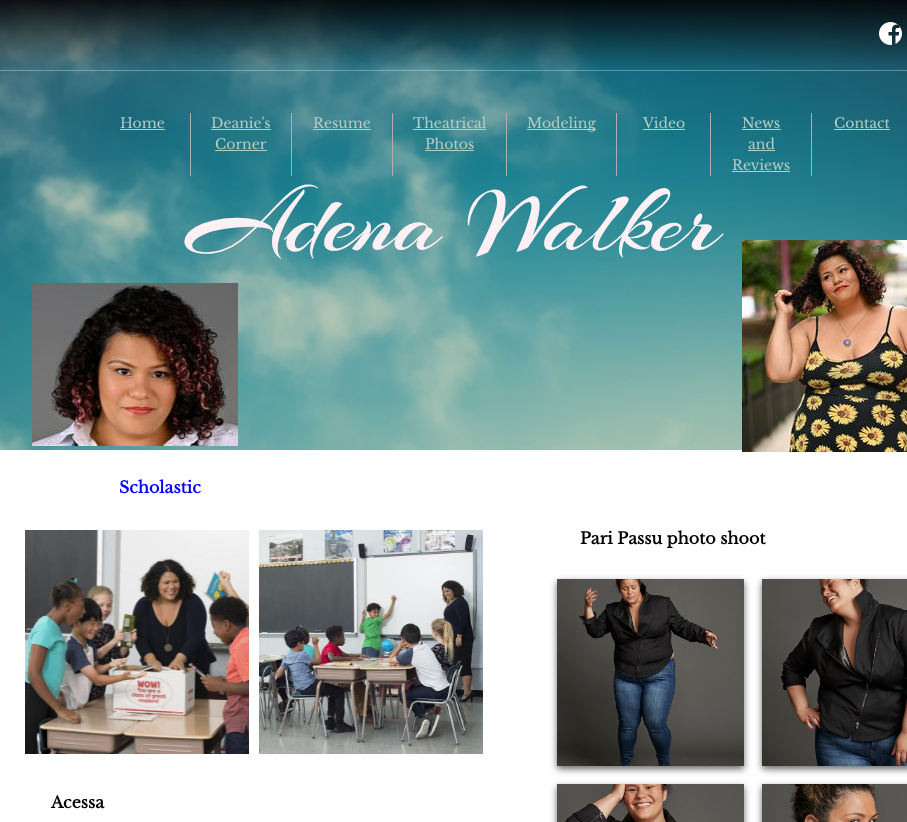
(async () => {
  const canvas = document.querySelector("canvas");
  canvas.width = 907;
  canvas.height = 822;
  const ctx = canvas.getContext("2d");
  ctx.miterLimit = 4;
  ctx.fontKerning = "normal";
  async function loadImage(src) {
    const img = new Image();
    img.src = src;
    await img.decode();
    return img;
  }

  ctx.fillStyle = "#ffffff";
  ctx.fillRect(0, 0, 907, 822);
  ctx.drawImage(await loadImage("img/1.png"), 0, 0, 907, 450);
  ctx.drawImage(await loadImage("img/2.png"), 879, 22, 23, 23);
  for (const [x, y, w, h, color] of [
    [0, 70, 907, 1, "rgba(255, 255, 255, 0.3)"],
    [190, 113, 1, 63, "#aeaeae"],
    [120, 129, 45, 1, "#b5ccc2"],
    [291, 113, 1, 63, "#aeaeae"],
    [211, 129, 60, 1, "#b5ccc2"],
    [215, 150, 52, 1, "#b5ccc2"],
    [392, 113, 1, 63, "#aeaeae"],
    [313, 129, 58, 1, "#b5ccc2"],
    [506, 113, 1, 63, "#aeaeae"],
    [413, 129, 73, 1, "#b5ccc2"],
    [425, 150, 49, 1, "#b5ccc2"],
    [616, 113, 1, 63, "#aeaeae"],
    [527, 129, 69, 1, "#b5ccc2"],
    [710, 113, 1, 63, "#aeaeae"],
    [643, 129, 42, 1, "#b5ccc2"],
    [811, 113, 1, 63, "#aeaeae"],
    [742, 129, 39, 1, "#b5ccc2"],
    [748, 150, 27, 1, "#b5ccc2"],
    [732, 171, 58, 1, "#b5ccc2"],
    [834, 129, 56, 1, "#b5ccc2"],
  ]) {
    ctx.fillStyle = color;
    ctx.fillRect(x, y, w, h);
  }
  ctx.drawImage(await loadImage("img/3.png"), 32, 283, 206, 163);
  ctx.drawImage(await loadImage("img/4.png"), 742, 240, 165, 212);
  ctx.drawImage(await loadImage("img/5.png"), 25, 530, 224, 224);
  ctx.drawImage(await loadImage("img/6.png"), 259, 530, 224, 224);
  ctx.fillStyle = "rgba(50, 50, 50, 0.75)";
  ctx.filter = "blur(3.5px)";
  ctx.beginPath();
  ctx.rect(557, 582, 187, 187);
  ctx.fill();
  ctx.filter = "none";
  ctx.drawImage(await loadImage("img/7.png"), 557, 579, 187, 187);
  ctx.filter = "blur(3.5px)";
  ctx.beginPath();
  ctx.rect(762, 582, 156, 187);
  ctx.fill();
  ctx.filter = "none";
  ctx.drawImage(await loadImage("img/8.png"), 762, 579, 145, 187);
  ctx.filter = "blur(3.5px)";
  ctx.beginPath();
  ctx.rect(557, 787, 187, 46);
  ctx.fill();
  ctx.filter = "none";
  ctx.drawImage(await loadImage("img/9.png"), 557, 784, 187, 38);
  ctx.filter = "blur(3.5px)";
  ctx.beginPath();
  ctx.rect(762, 787, 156, 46);
  ctx.fill();
  ctx.filter = "none";
  ctx.drawImage(await loadImage("img/10.png"), 762, 784, 145, 38);
  ctx.font = "14px Libre Baskerville";
  ctx.fillStyle = "#b5ccc2";
  for (const [text, x, y] of [
    ["Home", 120, 128],
    ["Deanie's", 211, 128],
    ["Corner", 215, 149],
    ["Resume", 313, 128],
    ["Theatrical", 413, 128],
    ["Photos", 425, 149],
    ["Modeling", 527, 128],
    ["Video", 643, 128],
    ["News", 742, 128],
    ["and", 748, 149],
    ["Reviews", 732, 170],
    ["Contact", 834, 128],
  ]) {
    ctx.fillText(text, x, y);
  }
  ctx.font = "96px Arizonia";
  ctx.fillStyle = "#fff0f5";
  ctx.fillText("Adena Walker", 187, 250);
  ctx.font = "bold 16px Libre Baskerville";
  ctx.fillStyle = "#0000ff";
  ctx.fillText("Scholastic", 119, 493);
  ctx.fillStyle = "#000000";
  ctx.fillText("Pari Passu photo shoot", 580, 544);
  ctx.fillText("Acessa", 51, 808);
})();
